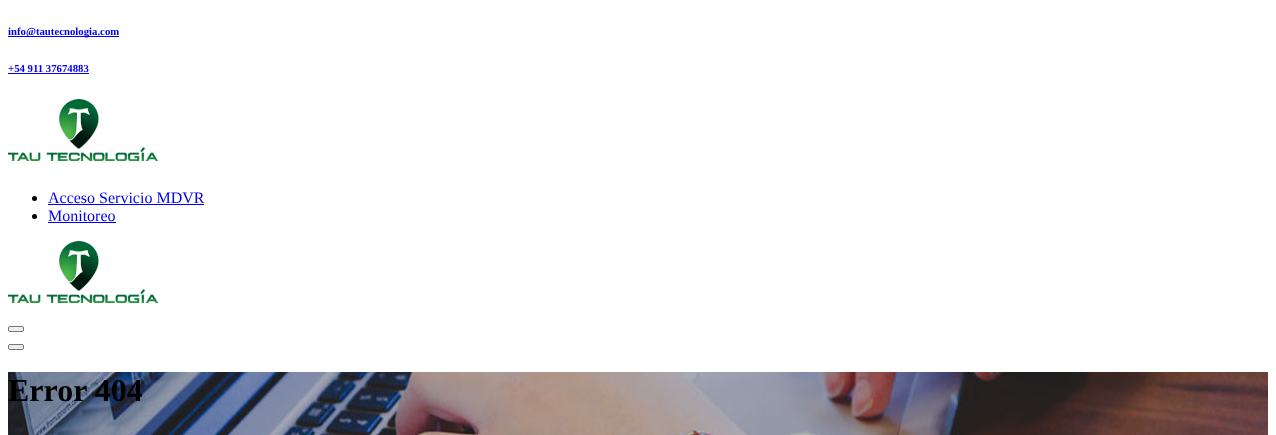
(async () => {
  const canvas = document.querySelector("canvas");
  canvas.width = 1276;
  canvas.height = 435;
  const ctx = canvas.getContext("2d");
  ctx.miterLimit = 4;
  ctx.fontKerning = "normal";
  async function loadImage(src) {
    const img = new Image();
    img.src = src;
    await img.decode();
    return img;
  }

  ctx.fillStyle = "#ffffff";
  ctx.fillRect(0, 0, 1276, 435);
  ctx.fillStyle = "#0000ee";
  ctx.fillRect(8, 36, 111, 1);
  ctx.fillRect(8, 73, 81, 1);
  ctx.drawImage(await loadImage("img/1.png"), 8, 99, 150, 62);
  ctx.fillStyle = "#000000";
  ctx.beginPath();
  ctx.arc(34.5, 198.5, 2.5, 0, Math.PI * 2);
  ctx.fill();
  ctx.fillStyle = "#0000ee";
  ctx.fillRect(48, 204, 156, 1);
  ctx.fillStyle = "#000000";
  ctx.beginPath();
  ctx.arc(34.5, 216.5, 2.5, 0, Math.PI * 2);
  ctx.fill();
  ctx.fillStyle = "#0000ee";
  ctx.fillRect(48, 222, 68, 1);
  ctx.drawImage(await loadImage("img/1.png"), 8, 241, 150, 62);
  ctx.fillStyle = "#efefef";
  ctx.beginPath();
  ctx.roundRect(8.5, 326.5, 15, 5, 1.5);
  ctx.fill();
  ctx.strokeStyle = "#767676";
  ctx.stroke();
  ctx.beginPath();
  ctx.roundRect(8.5, 344.5, 15, 5, 1.5);
  ctx.fill();
  ctx.stroke();
  ctx.drawImage(await loadImage("img/2.png"), 8, 372, 1260, 63);
  ctx.font = "bold 10.75px Liberation Serif";
  ctx.fillStyle = "#0000ee";
  ctx.fillText("info@tautecnologia.com", 8, 35);
  ctx.fillText("+54 911 37674883", 8, 72);
  ctx.font = "16px Liberation Serif";
  ctx.fillText("Acceso Servicio MDVR", 48, 203);
  ctx.fillText("Monitoreo", 48, 221);
  ctx.font = "bold 32px Liberation Serif";
  ctx.fillStyle = "#000000";
  ctx.fillText("Error 404", 8, 401);
})();
